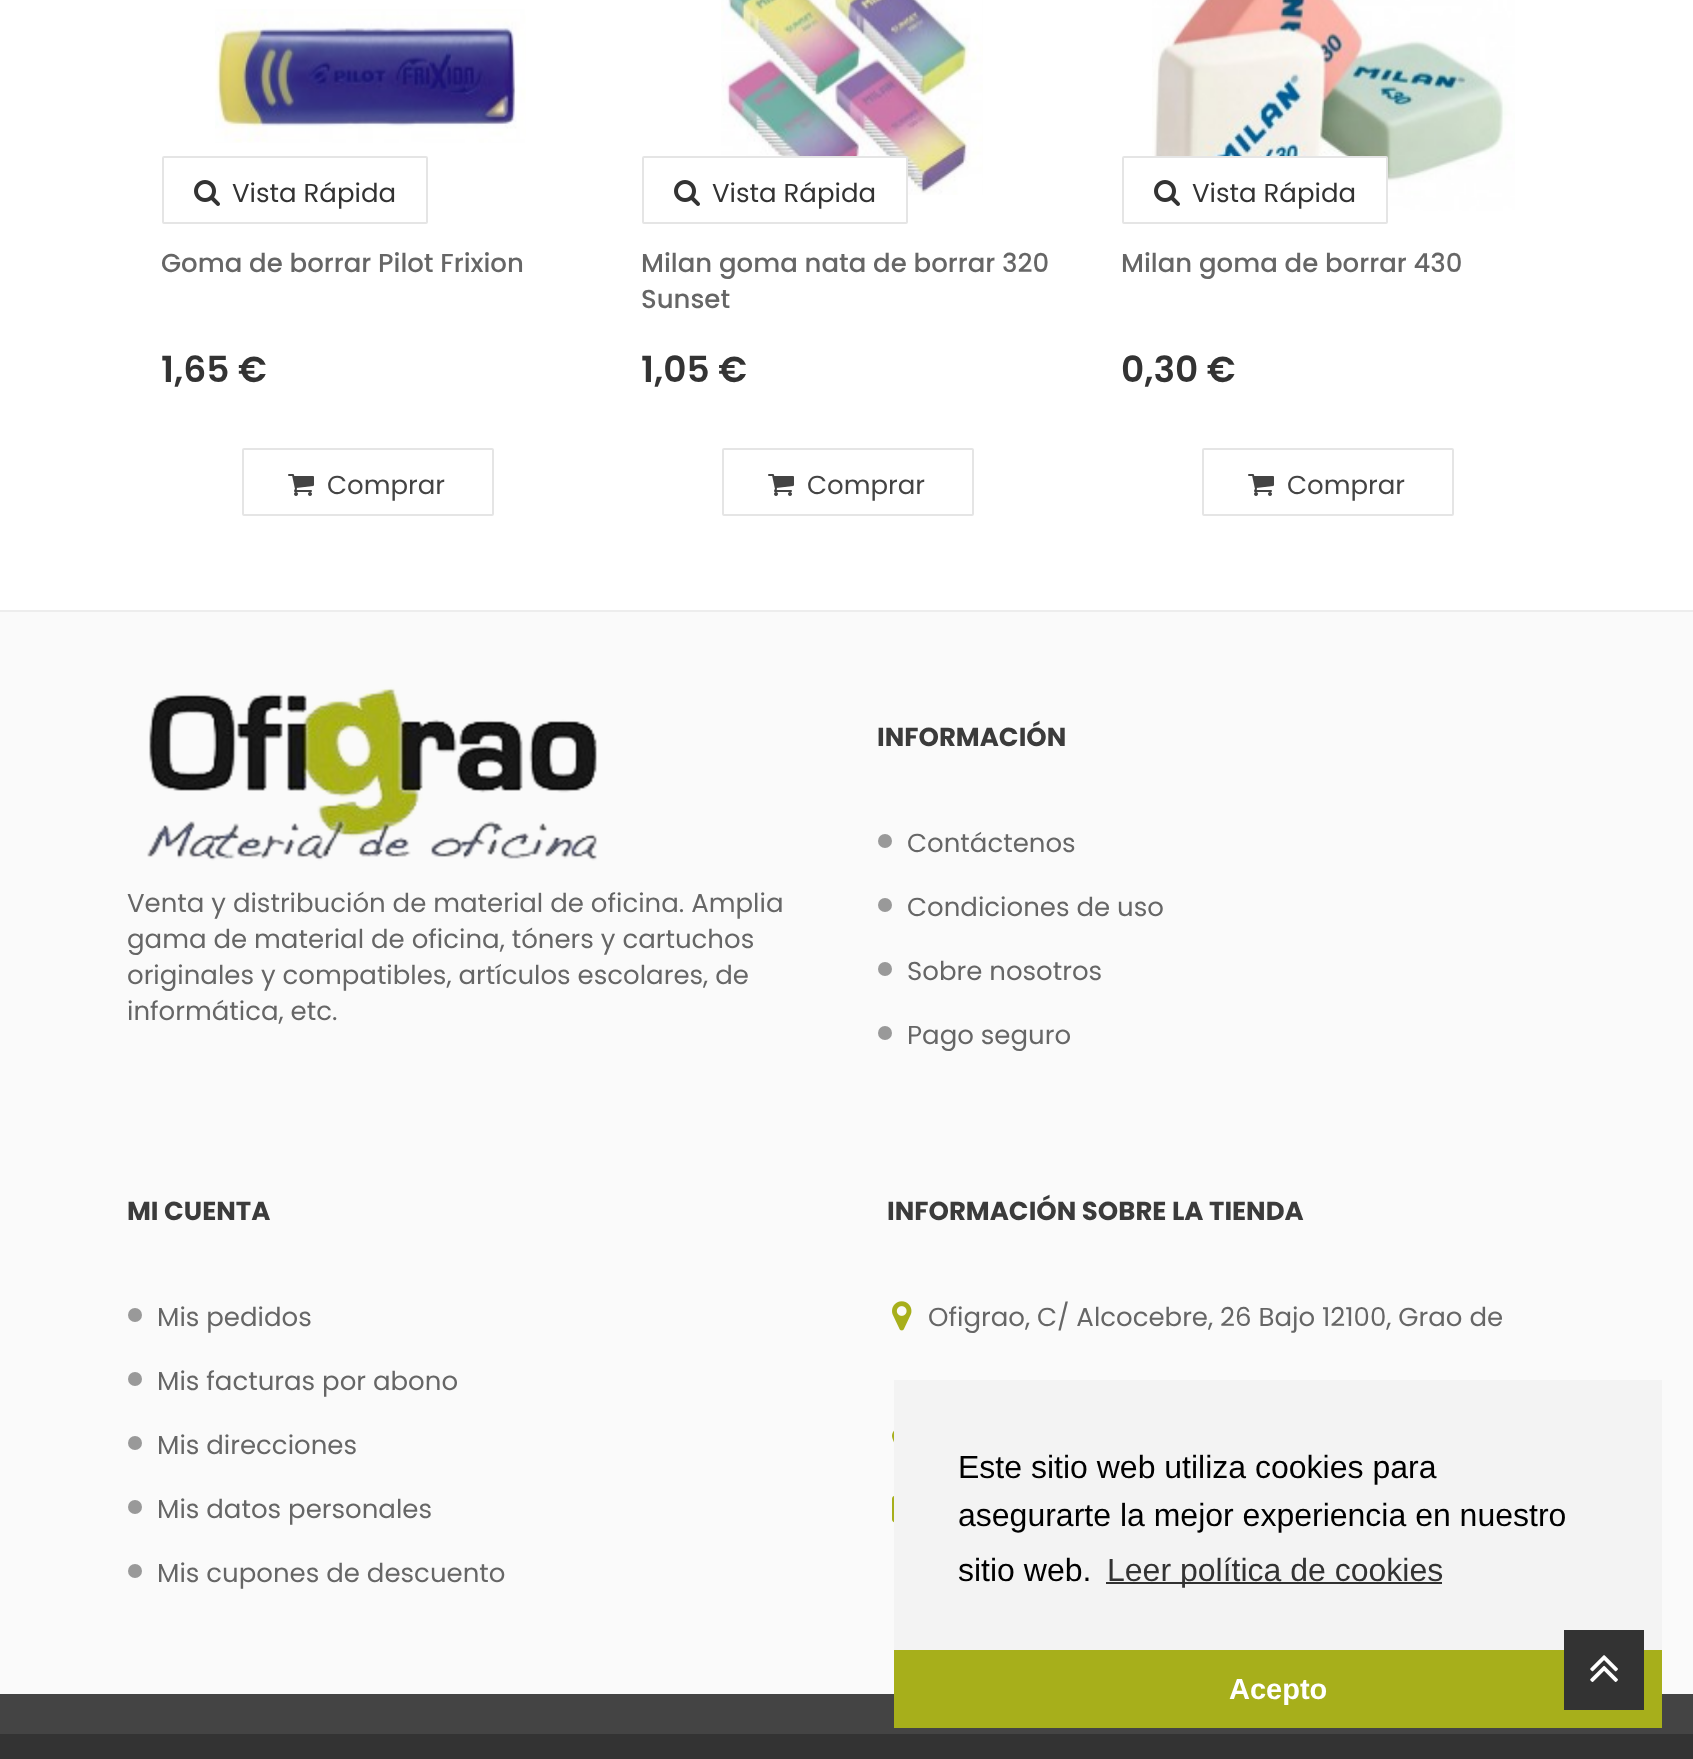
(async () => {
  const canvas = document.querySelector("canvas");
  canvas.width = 1693;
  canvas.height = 1759;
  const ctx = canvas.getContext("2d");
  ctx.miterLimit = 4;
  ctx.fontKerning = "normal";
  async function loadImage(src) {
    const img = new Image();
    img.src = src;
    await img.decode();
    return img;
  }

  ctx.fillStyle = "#ffffff";
  ctx.fillRect(0, 0, 1693, 1759);
  ctx.drawImage(await loadImage("img/1.png"), 215, 9, 311, 134);
  ctx.beginPath();
  ctx.roundRect(163, 157, 264, 66, 1);
  ctx.strokeStyle = "#e5e5e5";
  ctx.lineWidth = 2;
  ctx.stroke();
  ctx.drawImage(await loadImage("img/2.png"), 194, 180, 26, 26);
  ctx.beginPath();
  ctx.roundRect(243, 449, 250, 66, 1);
  ctx.stroke();
  ctx.drawImage(await loadImage("img/3.png"), 288, 474, 26, 22);
  ctx.drawImage(await loadImage("img/4.png"), 721, 0, 262, 195);
  ctx.beginPath();
  ctx.roundRect(643, 157, 264, 66, 1);
  ctx.fill();
  ctx.stroke();
  ctx.drawImage(await loadImage("img/2.png"), 674, 180, 26, 26);
  ctx.beginPath();
  ctx.roundRect(723, 449, 250, 66, 1);
  ctx.stroke();
  ctx.drawImage(await loadImage("img/3.png"), 768, 474, 26, 22);
  ctx.drawImage(await loadImage("img/5.png"), 1152, 0, 363, 211);
  ctx.beginPath();
  ctx.roundRect(1123, 157, 264, 66, 1);
  ctx.fill();
  ctx.stroke();
  ctx.drawImage(await loadImage("img/2.png"), 1154, 180, 26, 26);
  ctx.beginPath();
  ctx.roundRect(1203, 449, 250, 66, 1);
  ctx.stroke();
  ctx.drawImage(await loadImage("img/3.png"), 1248, 474, 26, 22);
  ctx.fillStyle = "#fafafa";
  ctx.fillRect(0, 612, 1693, 1082);
  ctx.fillStyle = "#ededed";
  ctx.fillRect(0, 610, 1693, 2);
  ctx.drawImage(await loadImage("img/6.png"), 147, 687, 450, 174);
  ctx.fillStyle = "#999999";
  ctx.beginPath();
  ctx.arc(885, 841, 7, 0, Math.PI * 2);
  ctx.fill();
  ctx.beginPath();
  ctx.arc(885, 905, 7, 0, Math.PI * 2);
  ctx.fill();
  ctx.beginPath();
  ctx.arc(885, 969, 7, 0, Math.PI * 2);
  ctx.fill();
  ctx.beginPath();
  ctx.arc(885, 1033, 7, 0, Math.PI * 2);
  ctx.fill();
  ctx.beginPath();
  ctx.arc(135, 1315, 7, 0, Math.PI * 2);
  ctx.fill();
  ctx.beginPath();
  ctx.arc(135, 1379, 7, 0, Math.PI * 2);
  ctx.fill();
  ctx.beginPath();
  ctx.arc(135, 1443, 7, 0, Math.PI * 2);
  ctx.fill();
  ctx.beginPath();
  ctx.arc(135, 1507, 7, 0, Math.PI * 2);
  ctx.fill();
  ctx.beginPath();
  ctx.arc(135, 1571, 7, 0, Math.PI * 2);
  ctx.fill();
  ctx.drawImage(await loadImage("img/7.png"), 892, 1301, 20, 30);
  ctx.drawImage(await loadImage("img/8.png"), 892, 1430, 2, 13);
  ctx.drawImage(await loadImage("img/9.png"), 892, 1496, 2, 27);
  for (const [x, y, w, h, color] of [
    [0, 1694, 1693, 40, "#444444"],
    [0, 1734, 1693, 25, "#333333"],
    [894, 1380, 768, 270, "#f3f3f3"],
    [894, 1650, 768, 78, "#a7af1b"],
    [1564, 1630, 80, 80, "#333333"],
  ]) {
    ctx.fillStyle = color;
    ctx.fillRect(x, y, w, h);
  }
  ctx.drawImage(await loadImage("img/10.png"), 1590, 1655, 28, 27);
  ctx.fillStyle = "#313131";
  ctx.fillRect(1106, 1582, 336, 2);
  ctx.font = "26px Poppins";
  ctx.fillStyle = "#333333";
  ctx.fillText("Vista Rápida", 232, 202);
  ctx.font = "500 26px Poppins";
  ctx.fillStyle = "#666666";
  ctx.fillText("Goma de borrar Pilot Frixion", 161, 272);
  ctx.font = "600 36px Poppins";
  ctx.fillStyle = "#333333";
  ctx.fillText("1,65 €", 161, 382);
  ctx.font = "26px Poppins";
  ctx.fillStyle = "#444444";
  ctx.fillText("Comprar", 327, 494);
  ctx.fillStyle = "#333333";
  ctx.fillText("Vista Rápida", 712, 202);
  ctx.font = "500 26px Poppins";
  ctx.fillStyle = "#666666";
  ctx.fillText("Milan goma nata de borrar 320", 641, 272);
  ctx.fillText("Sunset", 641, 308);
  ctx.font = "600 36px Poppins";
  ctx.fillStyle = "#333333";
  ctx.fillText("1,05 €", 641, 382);
  ctx.font = "26px Poppins";
  ctx.fillStyle = "#444444";
  ctx.fillText("Comprar", 807, 494);
  ctx.fillStyle = "#333333";
  ctx.fillText("Vista Rápida", 1192, 202);
  ctx.font = "500 26px Poppins";
  ctx.fillStyle = "#666666";
  ctx.fillText("Milan goma de borrar 430", 1121, 272);
  ctx.font = "600 36px Poppins";
  ctx.fillStyle = "#333333";
  ctx.fillText("0,30 €", 1121, 382);
  ctx.font = "26px Poppins";
  ctx.fillStyle = "#444444";
  ctx.fillText("Comprar", 1287, 494);
  ctx.fillStyle = "#666666";
  for (const [text, x, y] of [
    ["Venta y distribución de material de oficina. Amplia", 127, 912],
    ["gama de material de oficina, tóners y cartuchos", 127, 948],
    ["originales y compatibles, artículos escolares, de", 127, 984],
    ["informática, etc.", 127, 1020],
  ]) {
    ctx.fillText(text, x, y);
  }
  ctx.font = "bold 26px Poppins";
  ctx.fillStyle = "#3b3b3b";
  ctx.fillText("INFORMACIÓN", 877, 746);
  ctx.font = "26px Poppins";
  ctx.fillStyle = "#666666";
  for (const [text, x, y] of [
    ["Contáctenos", 907, 852],
    ["Condiciones de uso", 907, 916],
    ["Sobre nosotros", 907, 980],
    ["Pago seguro", 907, 1044],
  ]) {
    ctx.fillText(text, x, y);
  }
  ctx.font = "bold 26px Poppins";
  ctx.fillStyle = "#3b3b3b";
  ctx.fillText("MI CUENTA", 127, 1220);
  ctx.font = "26px Poppins";
  ctx.fillStyle = "#666666";
  for (const [text, x, y] of [
    ["Mis pedidos", 157, 1326],
    ["Mis facturas por abono", 157, 1390],
    ["Mis direcciones", 157, 1454],
    ["Mis datos personales", 157, 1518],
    ["Mis cupones de descuento", 157, 1582],
  ]) {
    ctx.fillText(text, x, y);
  }
  ctx.font = "bold 26px Poppins";
  ctx.fillStyle = "#3b3b3b";
  ctx.fillText("INFORMACIÓN SOBRE LA TIENDA", 887, 1220);
  ctx.font = "26px Poppins";
  ctx.fillStyle = "#666666";
  ctx.fillText("Ofigrao, C/ Alcocebre, 26 Bajo 12100, Grao de", 928, 1326);
  ctx.font = "32px Liberation Sans";
  ctx.fillStyle = "#000000";
  for (const [text, x, y] of [
    ["Este sitio web utiliza cookies para", 958, 1478],
    ["asegurarte la mejor experiencia en nuestro", 958, 1526],
    ["sitio web.", 958, 1581],
  ]) {
    ctx.fillText(text, x, y);
  }
  ctx.fillStyle = "#333333";
  ctx.fillText("Leer política de cookies", 1107, 1581);
  ctx.font = "bold 29px Liberation Sans";
  ctx.fillStyle = "#ffffff";
  ctx.fillText("Acepto", 1229, 1699);
})();
